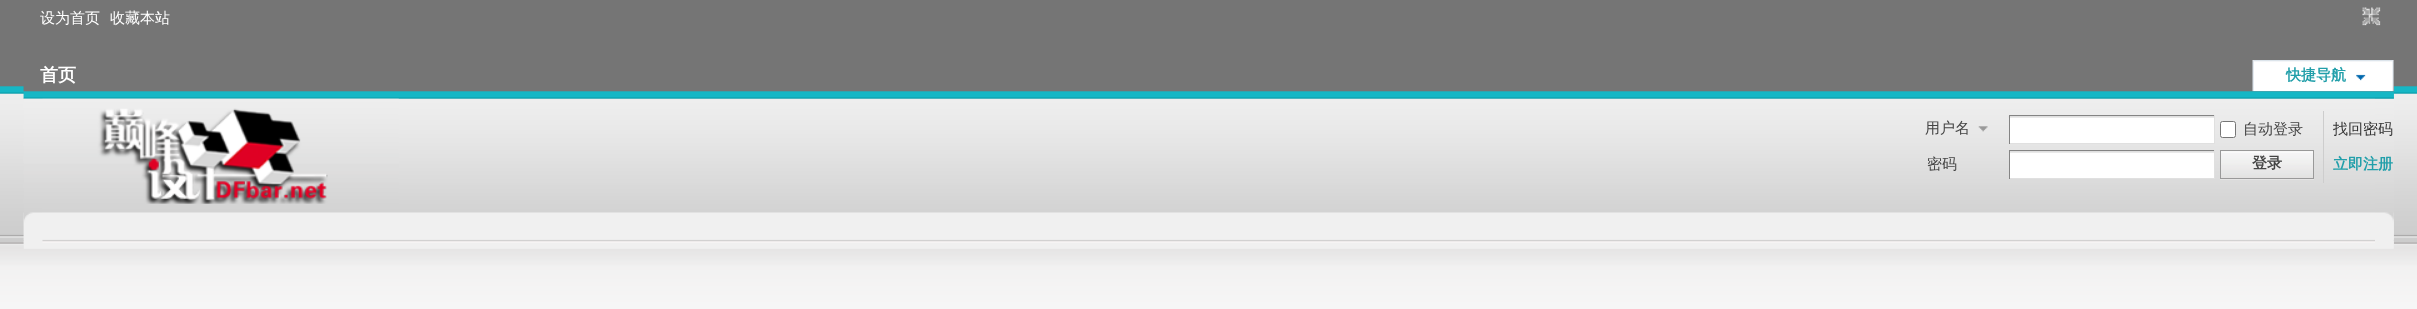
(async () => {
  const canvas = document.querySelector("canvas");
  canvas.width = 2417;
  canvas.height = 309;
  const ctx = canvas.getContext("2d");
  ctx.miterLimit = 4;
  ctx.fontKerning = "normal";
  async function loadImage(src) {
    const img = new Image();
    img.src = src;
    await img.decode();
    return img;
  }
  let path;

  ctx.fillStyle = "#ffffff";
  ctx.fillRect(0, 0, 2417, 309);
  ctx.drawImage(await loadImage("img/1.png"), 0, 35, 2417, 274);
  ctx.fillStyle = "#757575";
  ctx.fillRect(0, 0, 2417, 35);
  ctx.drawImage(await loadImage("img/2.png"), 2362, 7, 19, 19);
  ctx.drawImage(await loadImage("img/3.png"), 23, 86, 2371, 163);
  ctx.drawImage(await loadImage("img/4.png"), 23, 86, 20, 158);
  ctx.drawImage(await loadImage("img/5.png"), 2375, 86, 19, 158);
  ctx.drawImage(await loadImage("img/6.png"), 2252, 60, 142, 32);
  ctx.drawImage(await loadImage("img/7.png"), 23, 98, 376, 106);
  ctx.drawImage(await loadImage("img/8.png"), 1978, 126, 10, 6);
  ctx.fillStyle = "#ffffff";
  ctx.fillRect(2010, 116, 204, 27);
  ctx.drawImage(await loadImage("img/9.png"), 2008, 116, 206, 2);
  for (const [x, y, w, h, color] of [
    [2009, 115, 206, 1, "#848484"],
    [2214, 115, 1, 29, "#e0e0e0"],
    [2009, 143, 206, 1, "#e0e0e0"],
    [2009, 115, 1, 29, "#848484"],
  ]) {
    ctx.fillStyle = color;
    ctx.fillRect(x, y, w, h);
  }
  ctx.fillStyle = "#ffffff";
  ctx.beginPath();
  ctx.roundRect(2220.5, 121.5, 15, 16, 2);
  ctx.fill();
  ctx.strokeStyle = "#767676";
  ctx.stroke();
  ctx.fillRect(2010, 151, 204, 27);
  ctx.drawImage(await loadImage("img/10.png"), 2010, 151, 204, 2);
  for (const [x, y, w, h, color] of [
    [2009, 150, 206, 1, "#848484"],
    [2214, 150, 1, 29, "#e0e0e0"],
    [2009, 178, 206, 1, "#e0e0e0"],
    [2009, 150, 1, 29, "#848484"],
    [2323, 111, 1, 72, "#cdcdcd"],
  ]) {
    ctx.fillStyle = color;
    ctx.fillRect(x, y, w, h);
  }
  ctx.fillStyle = "#e5e5e5";
  path = new Path2D("M2220 179V180H2314V151V179Z");
  ctx.fill(path);
  ctx.drawImage(await loadImage("img/11.png"), 2221, 151, 92, 27);
  ctx.strokeStyle = "#999999";
  ctx.strokeRect(2220.5, 150.5, 93, 28);
  ctx.font = "500 15px WenQuanYi Zen Hei";
  ctx.fillStyle = "#ffffff";
  ctx.fillText("设为首页", 40, 23);
  ctx.fillText("收藏本站", 110, 23);
  ctx.font = "bold 18px WenQuanYi Zen Hei";
  ctx.fillText("首页", 40, 81);
  ctx.font = "bold 15px WenQuanYi Zen Hei";
  ctx.fillStyle = "#229faa";
  ctx.fillText("快捷导航", 2286, 80);
  ctx.font = "500 15px WenQuanYi Zen Hei";
  ctx.fillStyle = "#444444";
  ctx.fillText("用户名", 1925, 133);
  ctx.fillText("自动登录", 2243, 134);
  ctx.fillStyle = "#333333";
  ctx.fillText("找回密码", 2333, 134);
  ctx.fillStyle = "#444444";
  ctx.fillText("密码", 1927, 169);
  ctx.font = "bold 15px WenQuanYi Zen Hei";
  ctx.fillText("登录", 2252, 168);
  ctx.fillStyle = "#229faa";
  ctx.fillText("立即注册", 2333, 169);
})();
